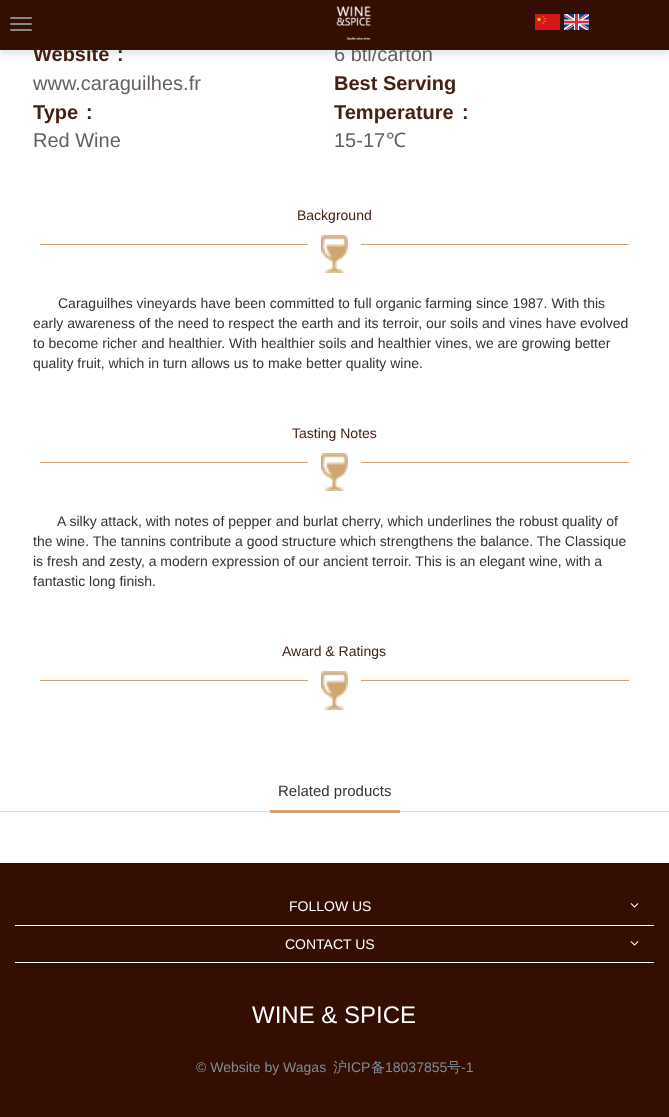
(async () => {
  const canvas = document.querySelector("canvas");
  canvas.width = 669;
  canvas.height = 1117;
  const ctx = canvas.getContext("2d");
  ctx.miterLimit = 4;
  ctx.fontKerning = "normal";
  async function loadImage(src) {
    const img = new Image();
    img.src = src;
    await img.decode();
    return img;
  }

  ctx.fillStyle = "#ffffff";
  ctx.fillRect(0, 0, 669, 1117);
  ctx.fillStyle = "#d5dae4";
  ctx.fillRect(0, 811, 669, 1);
  ctx.fillStyle = "rgba(166, 177, 198, 0.28)";
  ctx.filter = "blur(2.5px)";
  ctx.beginPath();
  ctx.rect(0, 5, 669, 50);
  ctx.fill();
  ctx.filter = "none";
  ctx.fillStyle = "#d2a277";
  ctx.fillRect(40, 244, 268, 1);
  ctx.drawImage(await loadImage("img/4.png"), 321, 235, 27, 38);
  ctx.fillRect(361, 244, 268, 1);
  ctx.fillRect(40, 462, 268, 1);
  ctx.drawImage(await loadImage("img/4.png"), 321, 453, 27, 38);
  ctx.fillRect(361, 462, 268, 1);
  ctx.fillRect(40, 680, 268, 1);
  ctx.drawImage(await loadImage("img/5.png"), 321, 671, 27, 39);
  for (const [x, y, w, h, color] of [
    [361, 680, 268, 1, "#d2a277"],
    [270, 810, 130, 3, "#d2a277"],
    [270, 811, 130, 1, "#bda99c"],
    [0, 863, 669, 254, "#340e02"],
    [15, 925, 639, 1, "#ffffff"],
  ]) {
    ctx.fillStyle = color;
    ctx.fillRect(x, y, w, h);
  }
  ctx.drawImage(await loadImage("img/6.png"), 630, 903, 9, 5);
  ctx.fillRect(15, 962, 639, 1);
  ctx.drawImage(await loadImage("img/6.png"), 630, 941, 9, 5);
  ctx.font = "bold 20px Liberation Sans";
  ctx.fillStyle = "#432214";
  ctx.fillText("Website", 33, 61);
  ctx.font = "bold 20px WenQuanYi Zen Hei";
  ctx.fillText("：", 110, 61);
  ctx.font = "20px Liberation Sans";
  ctx.fillStyle = "#665f5e";
  ctx.fillText("www.caraguilhes.fr", 33, 90);
  ctx.font = "bold 20px Liberation Sans";
  ctx.fillStyle = "#432214";
  ctx.fillText("Type", 33, 119);
  ctx.font = "bold 20px WenQuanYi Zen Hei";
  ctx.fillText("：", 79, 119);
  ctx.font = "20px Liberation Sans";
  ctx.fillStyle = "#665f5e";
  ctx.fillText("Red Wine", 33, 147);
  ctx.fillText("6 btl/carton", 334, 61);
  ctx.fillStyle = "#340e02";
  ctx.fillRect(0, 0, 669, 50);
  ctx.fillStyle = "#888888";
  ctx.beginPath();
  ctx.roundRect(10, 29, 22, 2, 1);
  ctx.fill();
  ctx.beginPath();
  ctx.roundRect(10, 23, 22, 2, 1);
  ctx.fill();
  ctx.beginPath();
  ctx.roundRect(10, 17, 22, 2, 1);
  ctx.fill();
  ctx.drawImage(await loadImage("img/3.png"), 564, 14, 25, 16);
  ctx.drawImage(await loadImage("img/2.png"), 535, 14, 25, 16);
  ctx.drawImage(await loadImage("img/1.png"), 336, 6, 35, 35);
  ctx.font = "bold 20px Liberation Sans";
  ctx.fillStyle = "#432214";
  ctx.fillText("Best Serving", 334, 90);
  ctx.fillText("Temperature", 334, 119);
  ctx.font = "bold 20px WenQuanYi Zen Hei";
  ctx.fillText("：", 455, 119);
  ctx.font = "20px Liberation Sans";
  ctx.fillStyle = "#665f5e";
  ctx.fillText("15-17", 334, 147);
  ctx.font = "20px Noto Sans";
  ctx.fillText("℃", 386, 147);
  ctx.font = "14px Liberation Sans";
  ctx.fillStyle = "#432214";
  ctx.fillText("Background", 297, 220);
  ctx.fillStyle = "#333333";
  for (const [text, x, y] of [
    ["Caraguilhes vineyards have been committed to full organic farming since 1987. With this", 58, 308],
    ["early awareness of the need to respect the earth and its terroir, our soils and vines have evolved", 33, 328],
    ["to become richer and healthier. With healthier soils and healthier vines, we are growing better", 33, 348],
    ["quality fruit, which in turn allows us to make better quality wine.", 33, 368],
  ]) {
    ctx.fillText(text, x, y);
  }
  ctx.fillStyle = "#432214";
  ctx.fillText("Tasting Notes", 292, 438);
  ctx.fillStyle = "#333333";
  for (const [text, x, y] of [
    ["A silky attack, with notes of pepper and burlat cherry, which underlines the robust quality of", 57, 526],
    ["the wine. The tannins contribute a good structure which strengthens the balance. The Classique", 33, 546],
    ["is fresh and zesty, a modern expression of our ancient terroir. This is an elegant wine, with a", 33, 566],
    ["fantastic long finish.", 33, 586],
  ]) {
    ctx.fillText(text, x, y);
  }
  ctx.fillStyle = "#432214";
  ctx.fillText("Award & Ratings", 282, 656);
  ctx.font = "15px Liberation Sans";
  ctx.fillStyle = "#333333";
  ctx.fillText("Related products", 278, 796);
  ctx.font = "14px Liberation Sans";
  ctx.fillStyle = "#ffffff";
  ctx.fillText("FOLLOW US", 289, 911);
  ctx.fillText("CONTACT US", 285, 949);
  ctx.font = "24px Liberation Sans";
  ctx.fillText("WINE & SPICE", 252, 1023);
  ctx.font = "14px Liberation Sans";
  ctx.fillStyle = "#7f8c97";
  ctx.fillText("© Website by Wagas", 196, 1072);
  ctx.font = "500 14px WenQuanYi Zen Hei";
  ctx.fillText("沪", 333, 1072);
  ctx.font = "14px Liberation Sans";
  ctx.fillText("ICP", 347, 1072);
  ctx.font = "500 14px WenQuanYi Zen Hei";
  ctx.fillText("备", 371, 1072);
  ctx.font = "14px Liberation Sans";
  ctx.fillText("18037855", 385, 1072);
  ctx.font = "500 14px WenQuanYi Zen Hei";
  ctx.fillText("号", 447, 1072);
  ctx.font = "14px Liberation Sans";
  ctx.fillText("-1", 461, 1072);
})();
